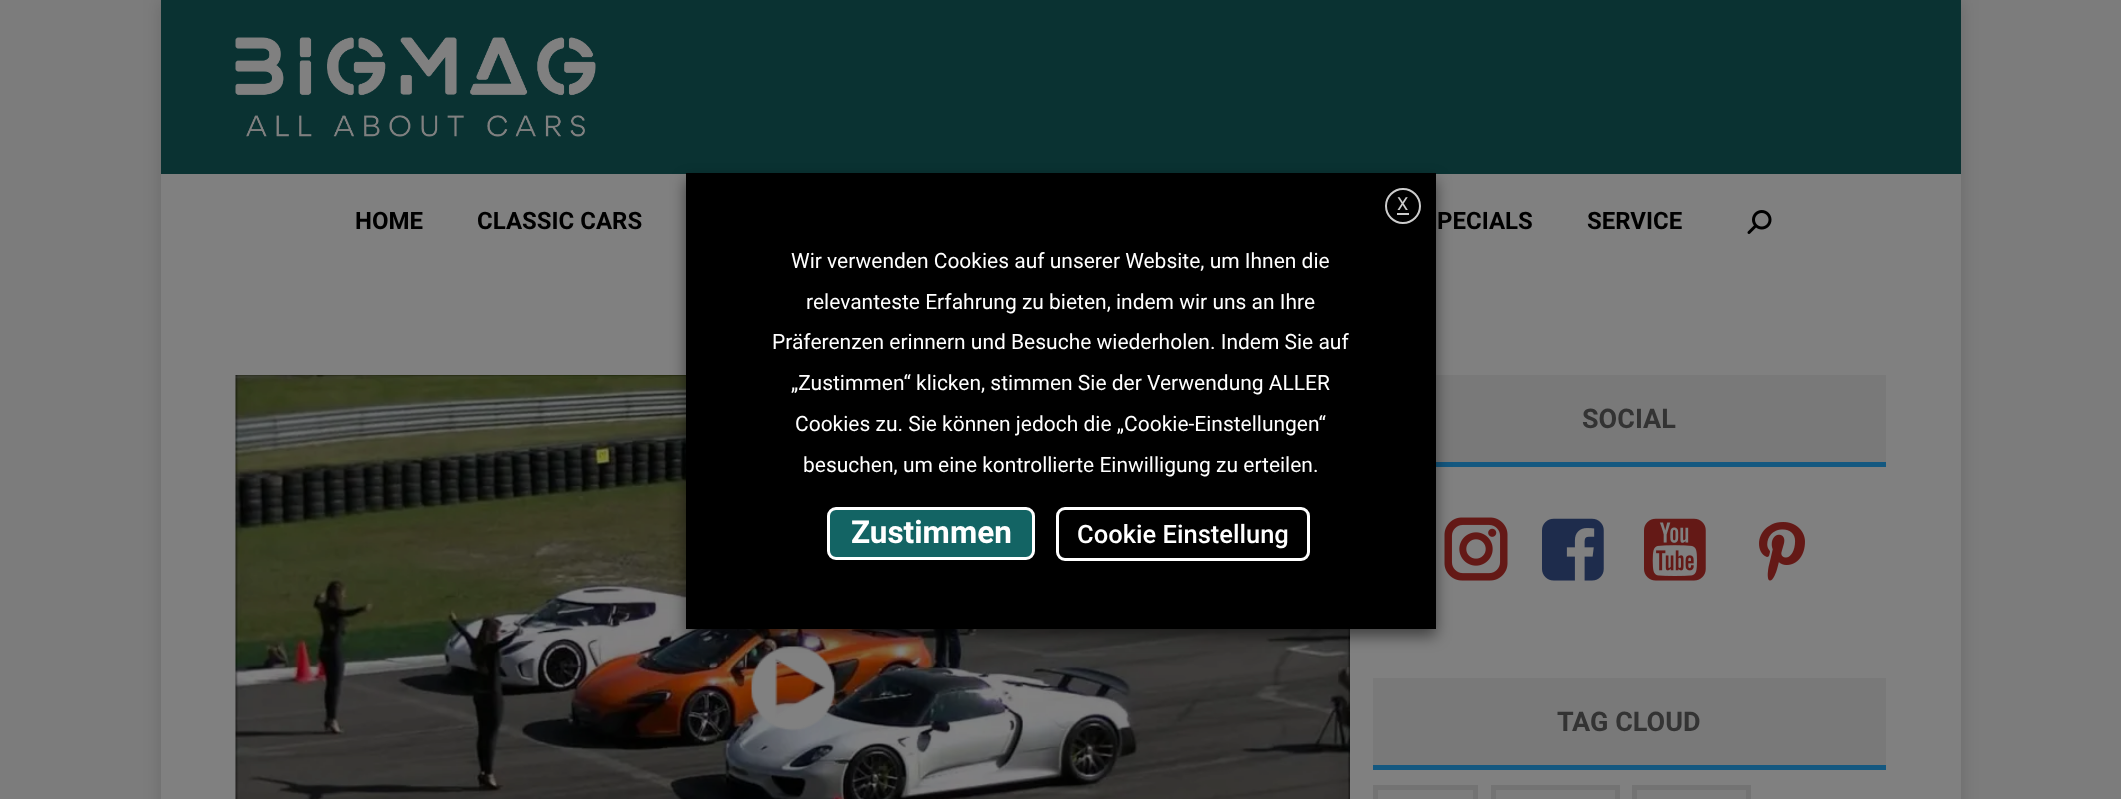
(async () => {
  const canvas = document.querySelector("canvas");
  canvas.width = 2121;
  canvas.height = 799;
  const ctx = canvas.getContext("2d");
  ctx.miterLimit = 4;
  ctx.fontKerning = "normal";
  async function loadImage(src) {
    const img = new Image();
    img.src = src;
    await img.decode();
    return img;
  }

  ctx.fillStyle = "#7c7c7c";
  ctx.fillRect(0, 0, 2121, 799);
  ctx.fillStyle = "rgba(0, 0, 0, 0.15)";
  ctx.filter = "blur(9px)";
  ctx.beginPath();
  ctx.rect(161, 0, 1800, 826);
  ctx.fill();
  ctx.filter = "none";
  ctx.fillStyle = "#808080";
  ctx.fillRect(161, 174, 1800, 625);
  ctx.fillStyle = "#0a3232";
  ctx.fillRect(161, 0, 1800, 174);
  ctx.drawImage(await loadImage("img/3.png"), 235, 375, 1115, 424);
  ctx.drawImage(await loadImage("img/4.png"), 751, 646, 85, 85);
  ctx.fillStyle = "#797979";
  ctx.fillRect(1436, 375, 450, 87);
  ctx.fillStyle = "#145880";
  ctx.fillRect(1436, 462, 450, 5);
  ctx.drawImage(await loadImage("img/5.png"), 1444, 517, 64, 64);
  ctx.fillStyle = "rgba(0, 0, 0, 0.5)";
  ctx.filter = "blur(7.5px)";
  ctx.beginPath();
  ctx.rect(686, 180, 750, 456);
  ctx.fill();
  ctx.filter = "none";
  ctx.fillStyle = "#000000";
  ctx.fillRect(686, 173, 750, 456);
  ctx.beginPath();
  ctx.arc(1403, 206, 17, 0, Math.PI * 2);
  ctx.strokeStyle = "#cccccc";
  ctx.lineWidth = 2;
  ctx.stroke();
  ctx.fillStyle = "#cccccc";
  ctx.fillRect(1397, 213, 12, 2);
  ctx.fillStyle = "#136464";
  ctx.beginPath();
  ctx.roundRect(828.5, 508.5, 205, 50, 7.5);
  ctx.fill();
  ctx.strokeStyle = "#ffffff";
  ctx.lineWidth = 3;
  ctx.stroke();
  ctx.beginPath();
  ctx.roundRect(1057.5, 508.5, 251, 51, 7.5);
  ctx.stroke();
  ctx.drawImage(await loadImage("img/1.png"), 235, 37, 361, 100);
  ctx.drawImage(await loadImage("img/2.png"), 1747, 210, 25, 24);
  ctx.drawImage(await loadImage("img/6.png"), 1542, 518, 62, 63);
  ctx.drawImage(await loadImage("img/7.png"), 1644, 518, 62, 63);
  ctx.drawImage(await loadImage("img/8.png"), 1759, 522, 46, 59);
  ctx.fillStyle = "#797979";
  ctx.fillRect(1373, 678, 513, 87);
  ctx.fillStyle = "#145880";
  ctx.fillRect(1373, 765, 513, 5);
  ctx.fillStyle = "#7c7c7c";
  ctx.beginPath();
  ctx.rect(1375.5, 787.5, 100, 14);
  ctx.fill();
  ctx.strokeStyle = "#737373";
  ctx.lineWidth = 5;
  ctx.stroke();
  ctx.beginPath();
  ctx.rect(1493.5, 787.5, 124, 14);
  ctx.fill();
  ctx.stroke();
  ctx.beginPath();
  ctx.rect(1634.5, 787.5, 114, 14);
  ctx.fill();
  ctx.stroke();
  ctx.font = "18px Roboto";
  ctx.fillStyle = "#cccccc";
  ctx.fillText("X", 1397, 210);
  ctx.font = "21px Roboto";
  ctx.fillStyle = "#ffffff";
  for (const [text, x, y] of [
    ["Wir verwenden Cookies auf unserer Website, um Ihnen die", 791, 268],
    ["relevanteste Erfahrung zu bieten, indem wir uns an Ihre", 806, 309],
    ["Präferenzen erinnern und Besuche wiederholen. Indem Sie auf", 772, 349],
    ["„Zustimmen“ klicken, stimmen Sie der Verwendung ALLER", 791, 390],
    ["Cookies zu. Sie können jedoch die „Cookie-Einstellungen“", 795, 431],
    ["besuchen, um eine kontrollierte Einwilligung zu erteilen.", 803, 472],
  ]) {
    ctx.fillText(text, x, y);
  }
  ctx.font = "bold 31.5px Roboto";
  ctx.fillText("Zustimmen", 851, 543);
  ctx.font = "500 25.5px Roboto";
  ctx.fillText("Cookie Einstellung", 1077, 543);
  ctx.font = "bold 24px Roboto";
  ctx.fillStyle = "#000000";
  for (const [text, x, y] of [
    ["HOME", 355, 229],
    ["CLASSIC CARS", 477, 229],
    ["PECIALS", 1437, 229],
    ["SERVICE", 1587, 229],
  ]) {
    ctx.fillText(text, x, y);
  }
  ctx.font = "bold 27px Roboto";
  ctx.fillStyle = "#333333";
  ctx.fillText("SOCIAL", 1582, 428);
  ctx.fillText("TAG CLOUD", 1557, 731);
})();
